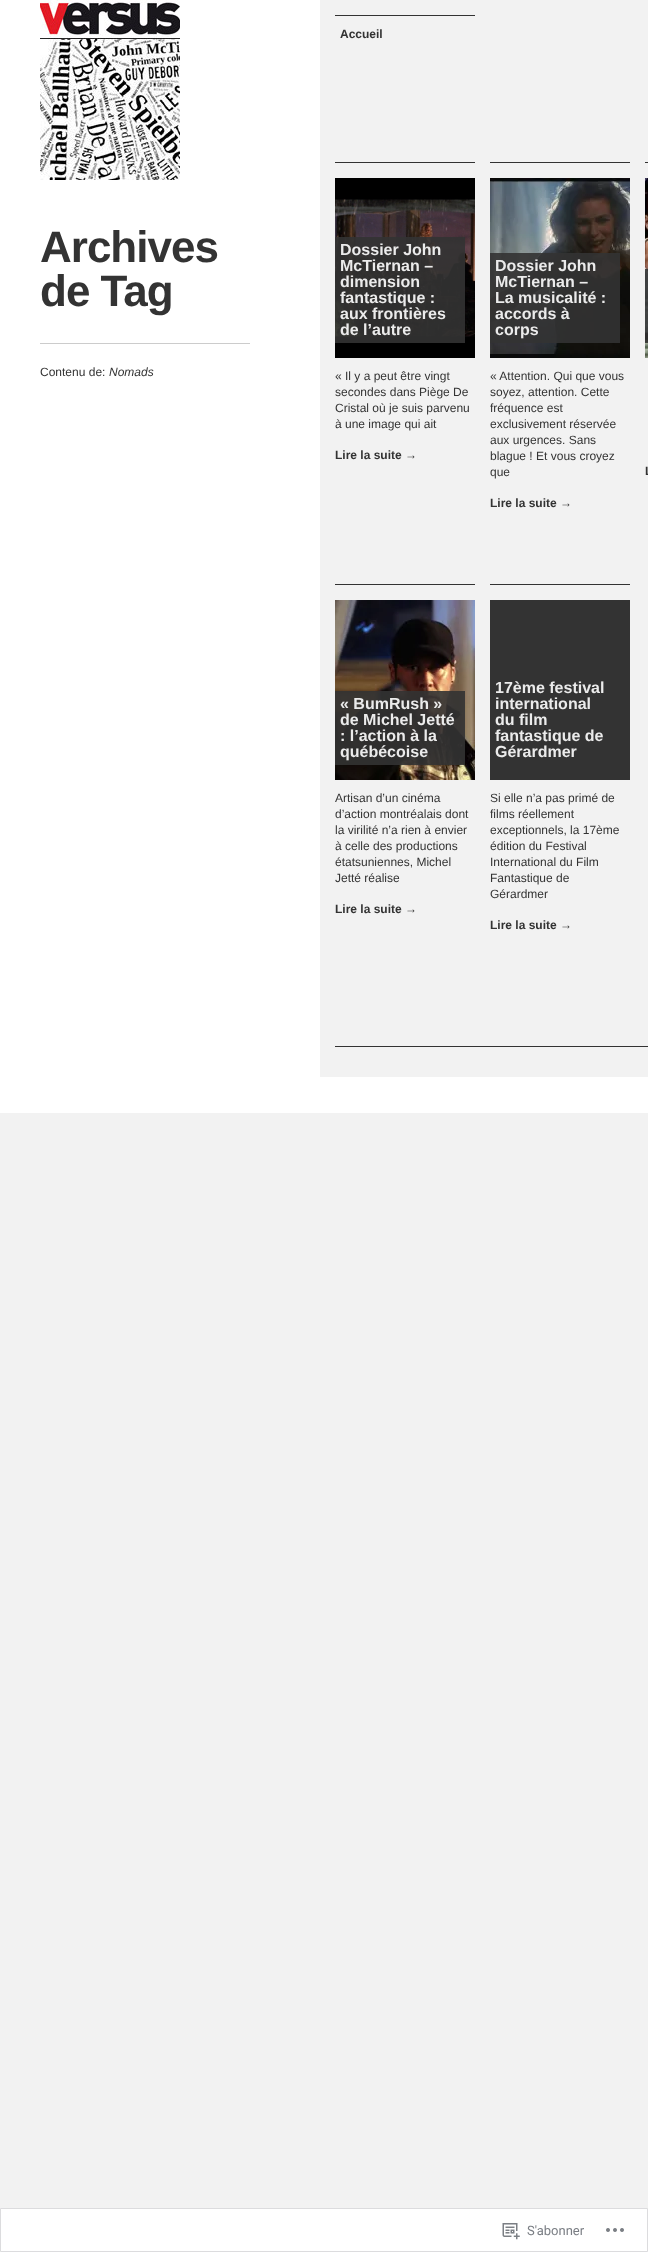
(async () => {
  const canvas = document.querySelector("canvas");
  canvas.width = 648;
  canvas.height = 2252;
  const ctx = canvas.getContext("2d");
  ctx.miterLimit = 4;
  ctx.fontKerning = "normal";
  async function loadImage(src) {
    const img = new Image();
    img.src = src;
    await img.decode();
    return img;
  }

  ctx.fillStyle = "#f2f2f2";
  ctx.fillRect(0, 0, 648, 2252);
  ctx.fillStyle = "#ffffff";
  ctx.fillRect(0, 0, 320, 1077);
  ctx.drawImage(await loadImage("img/1.png"), 40, 0, 140, 180);
  for (const [x, y, w, h, color] of [
    [40, 343, 210, 1, "#cccccc"],
    [335, 15, 140, 1, "#333333"],
    [335, 162, 140, 1, "#333333"],
  ]) {
    ctx.fillStyle = color;
    ctx.fillRect(x, y, w, h);
  }
  ctx.drawImage(await loadImage("img/2.png"), 335, 178, 140, 180);
  ctx.fillStyle = "rgba(51, 51, 51, 0.9)";
  ctx.fillRect(335, 237, 130, 106);
  ctx.fillStyle = "#333333";
  ctx.fillRect(490, 162, 140, 1);
  ctx.drawImage(await loadImage("img/3.png"), 490, 178, 140, 180);
  ctx.fillStyle = "rgba(51, 51, 51, 0.9)";
  ctx.fillRect(490, 253, 130, 90);
  ctx.fillStyle = "#333333";
  ctx.fillRect(645, 162, 3, 1);
  ctx.drawImage(await loadImage("img/4.png"), 645, 178, 3, 180);
  ctx.fillStyle = "rgba(51, 51, 51, 0.9)";
  ctx.fillRect(645, 269, 3, 74);
  ctx.fillStyle = "#333333";
  ctx.fillRect(335, 584, 140, 1);
  ctx.drawImage(await loadImage("img/5.png"), 335, 600, 140, 180);
  for (const [x, y, w, h, color] of [
    [335, 691, 130, 74, "rgba(51, 51, 51, 0.9)"],
    [490, 584, 140, 1, "#333333"],
    [490, 600, 140, 180, "#333333"],
    [335, 1046, 313, 1, "#333333"],
    [0, 1077, 648, 36, "#ffffff"],
  ]) {
    ctx.fillStyle = color;
    ctx.fillRect(x, y, w, h);
  }
  ctx.beginPath();
  ctx.rect(0.5, 2208.5, 647, 43);
  ctx.fill();
  ctx.strokeStyle = "#dcdcde";
  ctx.stroke();
  ctx.drawImage(await loadImage("img/6.png"), 502, 2223, 18, 17);
  ctx.drawImage(await loadImage("img/7.png"), 606, 2228, 18, 4);
  ctx.letterSpacing = "-1px";
  ctx.font = "bold 44px Liberation Sans";
  ctx.fillStyle = "#333333";
  ctx.fillText("Archives", 40, 262);
  ctx.fillText("de Tag", 40, 306);
  ctx.letterSpacing = "0px";
  ctx.font = "12px Liberation Sans";
  ctx.fillText("Contenu de:", 40, 376);
  ctx.font = "italic 12px Liberation Sans";
  ctx.fillText("Nomads", 109, 376);
  ctx.font = "bold 12px Liberation Sans";
  ctx.fillText("Accueil", 340, 38);
  ctx.font = "bold 16px Liberation Sans";
  ctx.fillStyle = "#ebebeb";
  for (const [text, x, y] of [
    ["Dossier John", 340, 255],
    ["McTiernan –", 340, 271],
    ["dimension", 340, 287],
    ["fantastique :", 340, 303],
    ["aux frontières", 340, 319],
    ["de l’autre", 340, 335],
  ]) {
    ctx.fillText(text, x, y);
  }
  ctx.font = "12px Liberation Sans";
  ctx.fillStyle = "#333333";
  for (const [text, x, y] of [
    ["« Il y a peut être vingt", 335, 380],
    ["secondes dans Piège De", 335, 396],
    ["Cristal où je suis parvenu", 335, 412],
    ["à une image qui ait", 335, 428],
  ]) {
    ctx.fillText(text, x, y);
  }
  ctx.font = "bold 12px Liberation Sans";
  ctx.fillText("Lire la suite →", 335, 459);
  ctx.font = "bold 16px Liberation Sans";
  ctx.fillStyle = "#ebebeb";
  for (const [text, x, y] of [
    ["Dossier John", 495, 271],
    ["McTiernan –", 495, 287],
    ["La musicalité :", 495, 303],
    ["accords à", 495, 319],
    ["corps", 495, 335],
  ]) {
    ctx.fillText(text, x, y);
  }
  ctx.font = "12px Liberation Sans";
  ctx.fillStyle = "#333333";
  for (const [text, x, y] of [
    ["« Attention. Qui que vous", 490, 380],
    ["soyez, attention. Cette", 490, 396],
    ["fréquence est", 490, 412],
    ["exclusivement réservée", 490, 428],
    ["aux urgences. Sans", 490, 444],
    ["blague ! Et vous croyez", 490, 460],
    ["que", 490, 476],
  ]) {
    ctx.fillText(text, x, y);
  }
  ctx.font = "bold 12px Liberation Sans";
  ctx.fillText("Lire la suite →", 490, 507);
  ctx.fillText("L", 645, 475);
  ctx.font = "bold 16px Liberation Sans";
  ctx.fillStyle = "#ebebeb";
  for (const [text, x, y] of [
    ["« BumRush »", 340, 709],
    ["de Michel Jetté", 340, 725],
    [": l’action à la", 340, 741],
    ["québécoise", 340, 757],
  ]) {
    ctx.fillText(text, x, y);
  }
  ctx.font = "12px Liberation Sans";
  ctx.fillStyle = "#333333";
  for (const [text, x, y] of [
    ["Artisan d’un cinéma", 335, 802],
    ["d’action montréalais dont", 335, 818],
    ["la virilité n’a rien à envier", 335, 834],
    ["à celle des productions", 335, 850],
    ["étatsuniennes, Michel", 335, 866],
    ["Jetté réalise", 335, 882],
  ]) {
    ctx.fillText(text, x, y);
  }
  ctx.font = "bold 12px Liberation Sans";
  ctx.fillText("Lire la suite →", 335, 913);
  ctx.font = "bold 16px Liberation Sans";
  ctx.fillStyle = "#ebebeb";
  for (const [text, x, y] of [
    ["17ème festival", 495, 693],
    ["international", 495, 709],
    ["du film", 495, 725],
    ["fantastique de", 495, 741],
    ["Gérardmer", 495, 757],
  ]) {
    ctx.fillText(text, x, y);
  }
  ctx.font = "12px Liberation Sans";
  ctx.fillStyle = "#333333";
  for (const [text, x, y] of [
    ["Si elle n’a pas primé de", 490, 802],
    ["films réellement", 490, 818],
    ["exceptionnels, la 17ème", 490, 834],
    ["édition du Festival", 490, 850],
    ["International du Film", 490, 866],
    ["Fantastique de", 490, 882],
    ["Gérardmer", 490, 898],
  ]) {
    ctx.fillText(text, x, y);
  }
  ctx.font = "bold 12px Liberation Sans";
  ctx.fillText("Lire la suite →", 490, 929);
  ctx.font = "13px Roboto";
  ctx.fillStyle = "#7a7e84";
  ctx.fillText("S'abonner", 527, 2235);
})();
